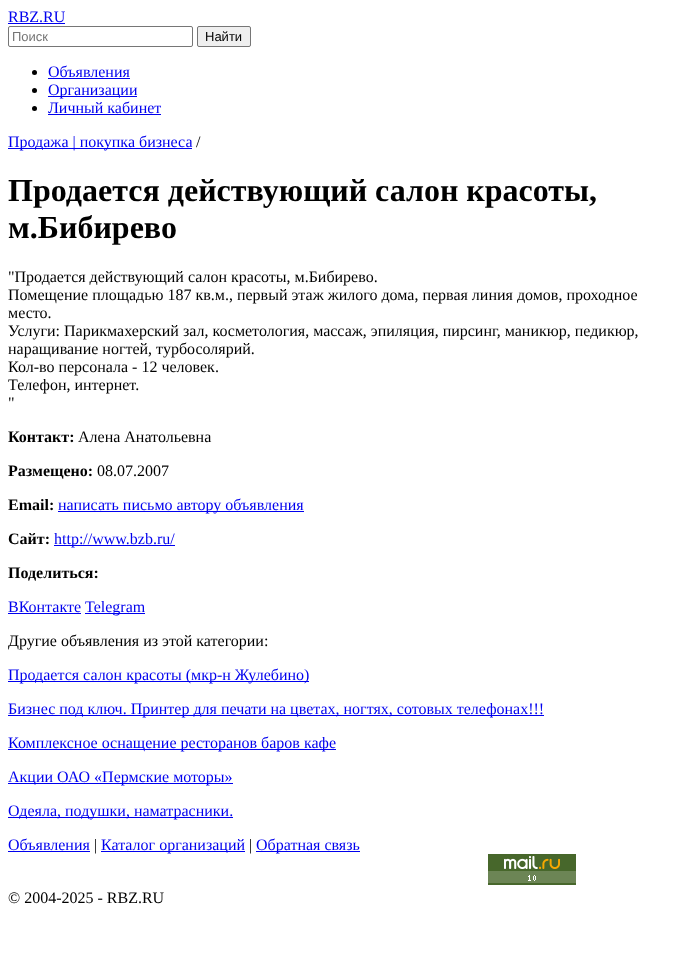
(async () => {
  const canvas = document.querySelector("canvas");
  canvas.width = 685;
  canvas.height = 965;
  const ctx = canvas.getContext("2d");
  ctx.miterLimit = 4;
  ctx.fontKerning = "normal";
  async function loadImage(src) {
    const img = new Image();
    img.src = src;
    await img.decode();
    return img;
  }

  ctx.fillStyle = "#ffffff";
  ctx.fillRect(0, 0, 685, 965);
  ctx.fillStyle = "#0000ee";
  ctx.fillRect(8, 23, 57, 1);
  ctx.beginPath();
  ctx.roundRect(8.5, 26.5, 184, 20, 1.5);
  ctx.strokeStyle = "#767676";
  ctx.stroke();
  ctx.fillStyle = "#efefef";
  ctx.beginPath();
  ctx.roundRect(197.5, 26.5, 53, 20, 1.5);
  ctx.fill();
  ctx.stroke();
  ctx.fillStyle = "#000000";
  ctx.beginPath();
  ctx.arc(34.5, 72.5, 2.5, 0, Math.PI * 2);
  ctx.fill();
  ctx.fillStyle = "#0000ee";
  ctx.fillRect(48, 78, 82, 1);
  ctx.fillStyle = "#000000";
  ctx.beginPath();
  ctx.arc(34.5, 90.5, 2.5, 0, Math.PI * 2);
  ctx.fill();
  ctx.fillStyle = "#0000ee";
  ctx.fillRect(48, 96, 89, 1);
  ctx.fillStyle = "#000000";
  ctx.beginPath();
  ctx.arc(34.5, 108.5, 2.5, 0, Math.PI * 2);
  ctx.fill();
  for (const [x, y, w, h, color] of [
    [48, 114, 113, 1, "#0000ee"],
    [8, 148, 184, 1, "#0000ee"],
    [58, 511, 246, 1, "#0000ee"],
    [54, 545, 121, 1, "#0000ee"],
    [8, 613, 73, 1, "#0000ee"],
    [85, 613, 60, 1, "#0000ee"],
    [8, 681, 301, 1, "#0000ee"],
    [8, 715, 536, 1, "#0000ee"],
    [8, 749, 328, 1, "#0000ee"],
    [8, 783, 225, 1, "#0000ee"],
    [8, 817, 225, 1, "#0000ee"],
    [8, 851, 82, 1, "#0000ee"],
    [101, 851, 144, 1, "#0000ee"],
    [256, 851, 104, 1, "#0000ee"],
  ]) {
    ctx.fillStyle = color;
    ctx.fillRect(x, y, w, h);
  }
  ctx.drawImage(await loadImage("img/1.png"), 488, 854, 88, 31);
  ctx.font = "16px Liberation Serif";
  ctx.fillText("RBZ.RU", 8, 22);
  ctx.font = "13px Liberation Sans";
  ctx.fillStyle = "#757575";
  ctx.fillText("Поиск", 12, 41);
  ctx.fillStyle = "#000000";
  ctx.fillText("Найти", 205, 41);
  ctx.font = "16px Liberation Serif";
  ctx.fillStyle = "#0000ee";
  for (const [text, x, y] of [
    ["Объявления", 48, 77],
    ["Организации", 48, 95],
    ["Личный кабинет", 48, 113],
    ["Продажа | покупка бизнеса", 8, 147],
  ]) {
    ctx.fillText(text, x, y);
  }
  ctx.fillStyle = "#000000";
  ctx.fillText("/", 196, 147);
  ctx.font = "bold 32px Liberation Serif";
  ctx.fillText("Продается действующий салон красоты,", 8, 201);
  ctx.fillText("м.Бибирево", 8, 238);
  ctx.font = "16px Liberation Serif";
  for (const [text, x, y] of [
    ["\"Продается действующий салон красоты, м.Бибирево.", 8, 282],
    ["Помещение площадью 187 кв.м., первый этаж жилого дома, первая линия домов, проходное", 8, 300],
    ["место.", 8, 318],
    ["Услуги: Парикмахерский зал, косметология, массаж, эпиляция, пирсинг, маникюр, педикюр,", 8, 336],
    ["наращивание ногтей, турбосолярий.", 8, 354],
    ["Кол-во персонала - 12 человек.", 8, 372],
    ["Телефон, интернет.", 8, 390],
    ["\"", 8, 408],
  ]) {
    ctx.fillText(text, x, y);
  }
  ctx.font = "bold 16px Liberation Serif";
  ctx.fillText("Контакт:", 8, 442);
  ctx.font = "16px Liberation Serif";
  ctx.fillText("Алена Анатольевна", 78, 442);
  ctx.font = "bold 16px Liberation Serif";
  ctx.fillText("Размещено:", 8, 476);
  ctx.font = "16px Liberation Serif";
  ctx.fillText("08.07.2007", 97, 476);
  ctx.font = "bold 16px Liberation Serif";
  ctx.fillText("Email:", 8, 510);
  ctx.font = "16px Liberation Serif";
  ctx.fillStyle = "#0000ee";
  ctx.fillText("написать письмо автору объявления", 58, 510);
  ctx.font = "bold 16px Liberation Serif";
  ctx.fillStyle = "#000000";
  ctx.fillText("Сайт:", 8, 544);
  ctx.font = "16px Liberation Serif";
  ctx.fillStyle = "#0000ee";
  ctx.fillText("http://www.bzb.ru/", 54, 544);
  ctx.font = "bold 16px Liberation Serif";
  ctx.fillStyle = "#000000";
  ctx.fillText("Поделиться:", 8, 578);
  ctx.font = "16px Liberation Serif";
  ctx.fillStyle = "#0000ee";
  ctx.fillText("ВКонтакте", 8, 612);
  ctx.fillText("Telegram", 85, 612);
  ctx.fillStyle = "#000000";
  ctx.fillText("Другие объявления из этой категории:", 8, 646);
  ctx.fillStyle = "#0000ee";
  for (const [text, x, y] of [
    ["Продается салон красоты (мкр-н Жулебино)", 8, 680],
    ["Бизнес под ключ. Принтер для печати на цветах, ногтях, сотовых телефонах!!!", 8, 714],
    ["Комплексное оснащение ресторанов баров кафе", 8, 748],
    ["Акции ОАО «Пермские моторы»", 8, 782],
    ["Одеяла, подушки, наматрасники.", 8, 816],
    ["Объявления", 8, 850],
  ]) {
    ctx.fillText(text, x, y);
  }
  ctx.fillStyle = "#000000";
  ctx.fillText("|", 94, 850);
  ctx.fillStyle = "#0000ee";
  ctx.fillText("Каталог организаций", 101, 850);
  ctx.fillStyle = "#000000";
  ctx.fillText("|", 249, 850);
  ctx.fillStyle = "#0000ee";
  ctx.fillText("Обратная связь", 256, 850);
  ctx.fillStyle = "#000000";
  ctx.fillText("© 2004-2025 - RBZ.RU", 8, 903);
})();
